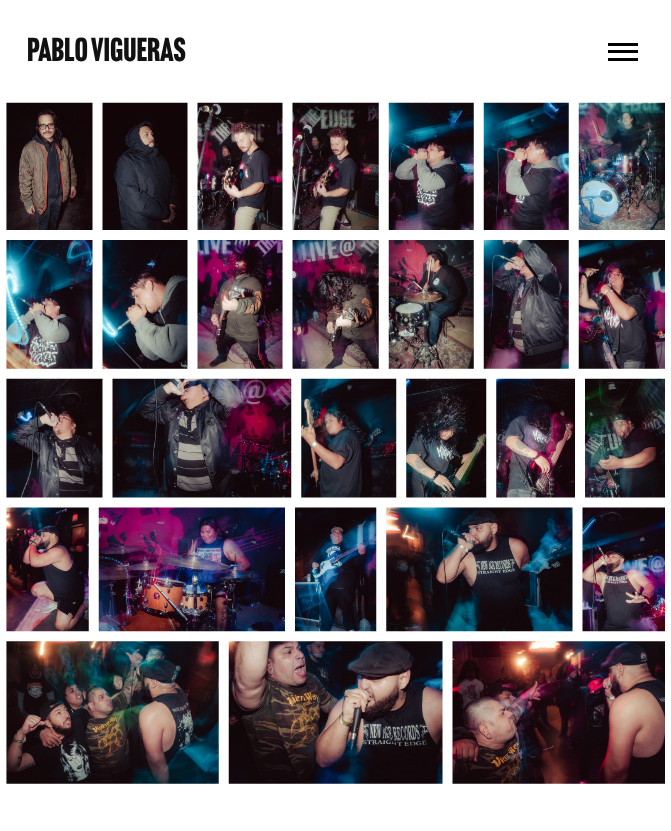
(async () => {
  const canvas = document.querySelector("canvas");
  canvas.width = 671;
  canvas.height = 831;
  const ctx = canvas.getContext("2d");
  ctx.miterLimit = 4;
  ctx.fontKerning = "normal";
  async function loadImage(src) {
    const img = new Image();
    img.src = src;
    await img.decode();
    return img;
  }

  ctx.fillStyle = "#ffffff";
  ctx.fillRect(0, 0, 671, 831);
  for (const [x, y, w, h, color] of [
    [608, 43, 30, 3, "#000000"],
    [608, 50, 30, 3, "#000000"],
    [608, 58, 30, 3, "#000000"],
  ]) {
    ctx.fillStyle = color;
    ctx.fillRect(x, y, w, h);
  }
  ctx.drawImage(await loadImage("img/1.png"), 6, 102, 87, 128);
  ctx.drawImage(await loadImage("img/2.png"), 102, 102, 86, 128);
  ctx.drawImage(await loadImage("img/3.png"), 197, 102, 86, 128);
  ctx.drawImage(await loadImage("img/4.png"), 292, 102, 87, 128);
  ctx.drawImage(await loadImage("img/5.png"), 388, 102, 86, 128);
  ctx.drawImage(await loadImage("img/6.png"), 483, 102, 86, 128);
  ctx.drawImage(await loadImage("img/7.png"), 578, 102, 87, 128);
  ctx.drawImage(await loadImage("img/8.png"), 6, 240, 87, 129);
  ctx.drawImage(await loadImage("img/9.png"), 102, 240, 86, 129);
  ctx.drawImage(await loadImage("img/10.png"), 197, 240, 86, 129);
  ctx.drawImage(await loadImage("img/11.png"), 292, 240, 87, 129);
  ctx.drawImage(await loadImage("img/12.png"), 388, 240, 86, 129);
  ctx.drawImage(await loadImage("img/13.png"), 483, 240, 86, 129);
  ctx.drawImage(await loadImage("img/14.png"), 578, 240, 87, 129);
  ctx.drawImage(await loadImage("img/15.png"), 6, 378, 97, 120);
  ctx.drawImage(await loadImage("img/16.png"), 112, 378, 180, 120);
  ctx.drawImage(await loadImage("img/17.png"), 301, 378, 96, 120);
  ctx.drawImage(await loadImage("img/18.png"), 406, 378, 81, 120);
  ctx.drawImage(await loadImage("img/19.png"), 496, 378, 79, 120);
  ctx.drawImage(await loadImage("img/20.png"), 585, 378, 80, 120);
  ctx.drawImage(await loadImage("img/21.png"), 6, 507, 83, 125);
  ctx.drawImage(await loadImage("img/22.png"), 98, 507, 187, 125);
  ctx.drawImage(await loadImage("img/23.png"), 295, 507, 82, 125);
  ctx.drawImage(await loadImage("img/24.png"), 386, 507, 187, 125);
  ctx.drawImage(await loadImage("img/25.png"), 582, 507, 83, 125);
  ctx.drawImage(await loadImage("img/26.png"), 6, 641, 213, 143);
  ctx.drawImage(await loadImage("img/27.png"), 228, 641, 215, 143);
  ctx.drawImage(await loadImage("img/28.png"), 452, 641, 213, 143);
  ctx.font = "32.5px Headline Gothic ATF";
  ctx.fillStyle = "#111111";
  ctx.fillText("PABLO VIGUERAS", 27, 61);
})();
